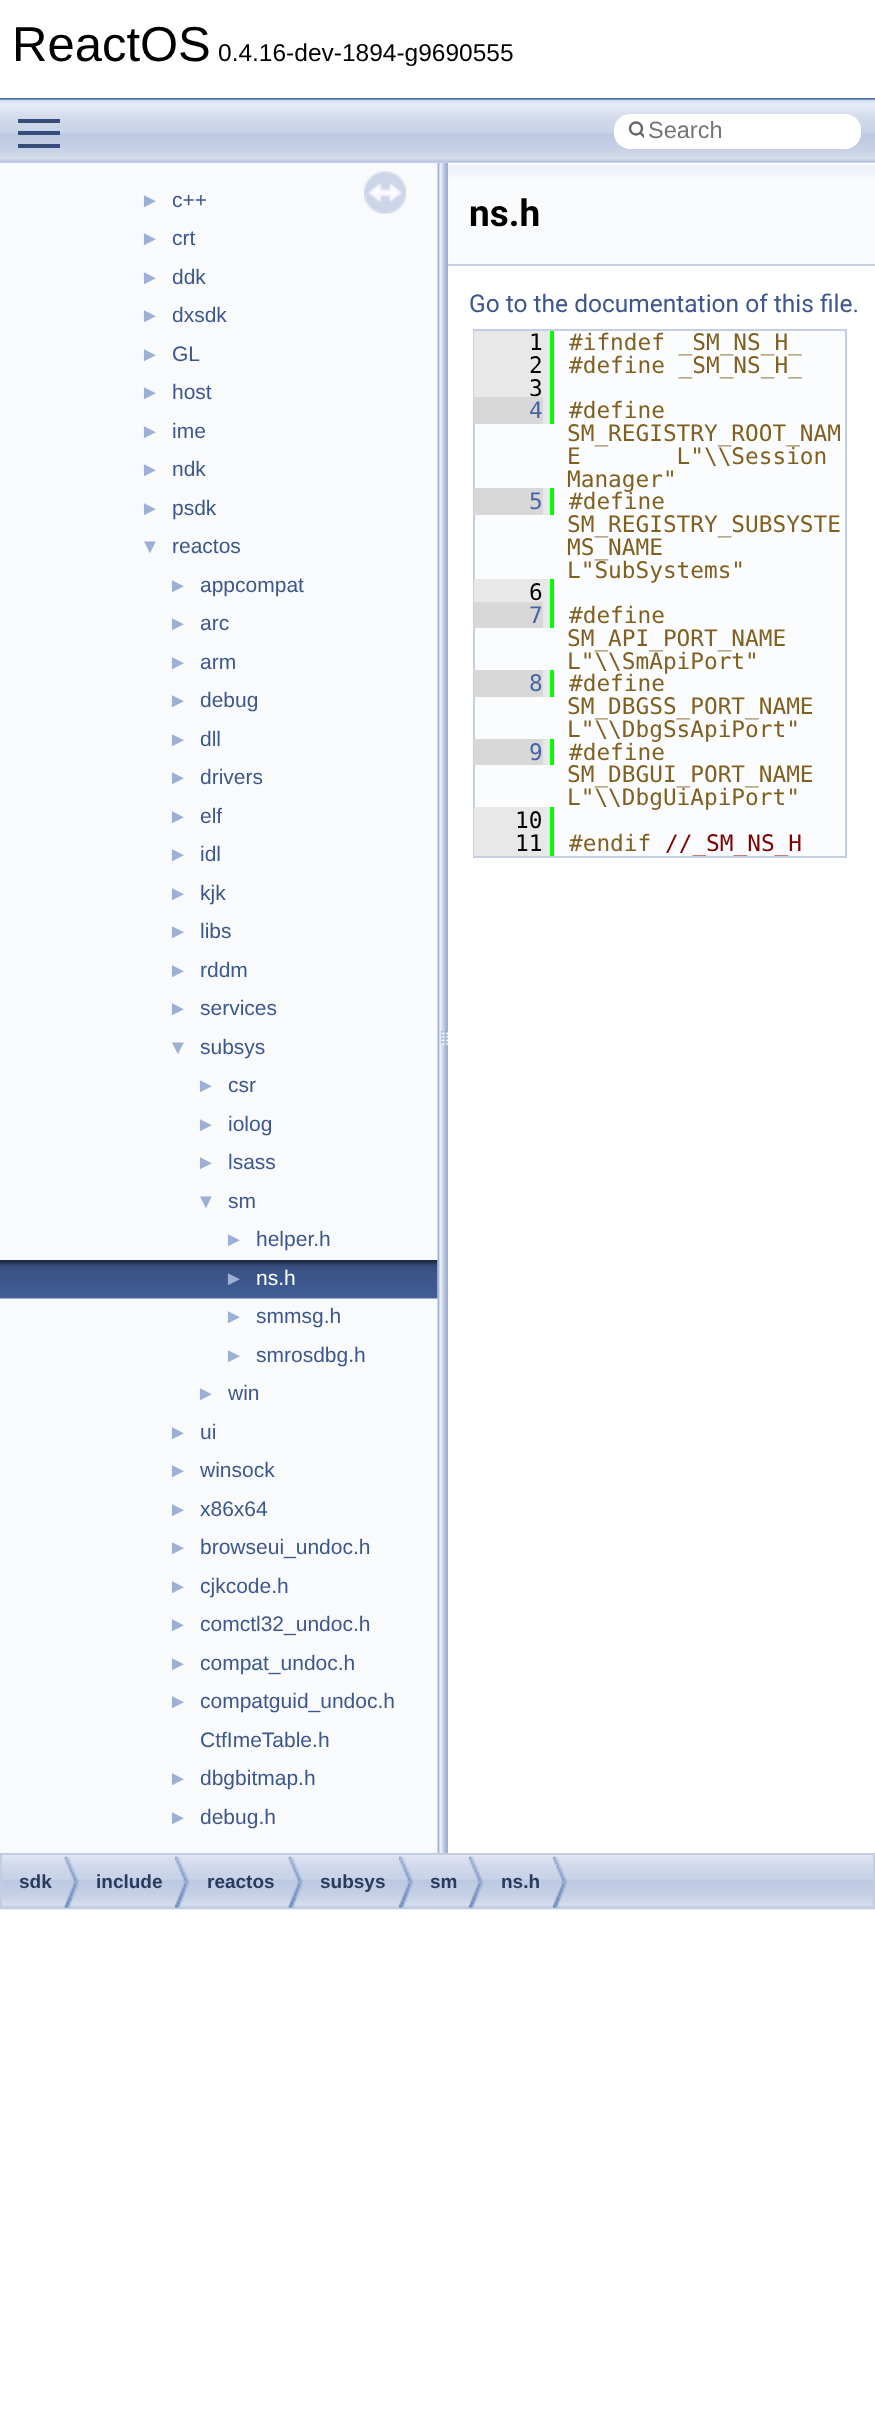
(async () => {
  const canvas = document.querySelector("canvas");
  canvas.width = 875;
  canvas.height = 2413;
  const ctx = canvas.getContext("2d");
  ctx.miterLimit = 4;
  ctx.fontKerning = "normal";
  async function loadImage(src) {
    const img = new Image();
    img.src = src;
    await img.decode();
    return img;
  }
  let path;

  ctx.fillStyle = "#ffffff";
  ctx.fillRect(0, 0, 875, 2413);
  ctx.fillStyle = "#5373b4";
  ctx.fillRect(0, 98, 875, 2);
  ctx.fillStyle = "#f9fafc";
  ctx.fillRect(0, 163, 438, 1690);
  ctx.drawImage(await loadImage("img/3.png"), 0, 1260, 438, 39);
  ctx.drawImage(await loadImage("img/4.png"), 437, 162, 11, 1691);
  ctx.drawImage(await loadImage("img/1.png"), 0, 99, 875, 64);
  for (const [x, y, w, h, color] of [
    [18, 131, 42, 4, "#364d7c"],
    [18, 119, 42, 4, "#364d7c"],
    [18, 144, 42, 4, "#364d7c"],
  ]) {
    ctx.fillStyle = color;
    ctx.fillRect(x, y, w, h);
  }
  ctx.fillStyle = "#ffffff";
  ctx.beginPath();
  ctx.roundRect(614, 114, 247, 35, 16);
  ctx.fill();
  ctx.beginPath();
  ctx.arc(636, 128.5, 6, 0, Math.PI * 2);
  ctx.strokeStyle = "#656565";
  ctx.lineWidth = 2.4;
  ctx.stroke();
  ctx.save();
  ctx.beginPath();
  ctx.rect(627, 114, 17, 33);
  ctx.clip();
  path = new Path2D("M640.5 133L645.5 138");
  ctx.lineCap = "round";
  ctx.stroke(path);
  ctx.restore();
  ctx.drawImage(await loadImage("img/2.png"), 364, 171, 42, 43);
  ctx.fillStyle = "#f9fafc";
  ctx.fillRect(448, 177, 427, 87);
  ctx.drawImage(await loadImage("img/5.png"), 448, 163, 427, 14);
  ctx.fillStyle = "#c4cfe5";
  ctx.fillRect(448, 264, 427, 2);
  ctx.fillStyle = "#fbfcfd";
  ctx.beginPath();
  ctx.rect(474, 330, 372, 527);
  ctx.fill();
  ctx.strokeStyle = "#c4cfe5";
  ctx.lineWidth = 2;
  ctx.stroke();
  for (const [x, y, w, h, color] of [
    [474, 331, 76, 66, "#e8e8e8"],
    [550, 331, 4, 93, "#00ff00"],
    [543, 397, 7, 27, "#e8e8e8"],
    [474, 397, 69, 27, "#d8d8d8"],
    [543, 488, 7, 27, "#e8e8e8"],
    [550, 488, 4, 27, "#00ff00"],
    [474, 488, 69, 27, "#d8d8d8"],
    [474, 579, 76, 23, "#e8e8e8"],
    [550, 579, 4, 49, "#00ff00"],
    [543, 602, 7, 26, "#e8e8e8"],
    [474, 602, 69, 26, "#d8d8d8"],
    [543, 670, 7, 27, "#e8e8e8"],
    [550, 670, 4, 27, "#00ff00"],
    [474, 670, 69, 27, "#d8d8d8"],
    [543, 739, 7, 26, "#e8e8e8"],
    [550, 739, 4, 26, "#00ff00"],
    [474, 739, 69, 26, "#d8d8d8"],
    [474, 807, 76, 49, "#e8e8e8"],
    [550, 807, 4, 49, "#00ff00"],
  ]) {
    ctx.fillStyle = color;
    ctx.fillRect(x, y, w, h);
  }
  ctx.drawImage(await loadImage("img/6.png"), 0, 1855, 875, 55);
  ctx.strokeStyle = "#c2cde4";
  ctx.strokeRect(1, 1854, 873, 54);
  ctx.drawImage(await loadImage("img/7.png"), 64, 1856, 15, 52);
  ctx.drawImage(await loadImage("img/8.png"), 175, 1856, 14, 52);
  ctx.drawImage(await loadImage("img/7.png"), 288, 1856, 15, 52);
  ctx.drawImage(await loadImage("img/8.png"), 399, 1856, 14, 52);
  ctx.drawImage(await loadImage("img/8.png"), 469, 1856, 14, 52);
  ctx.drawImage(await loadImage("img/9.png"), 553, 1856, 14, 52);
  ctx.font = "49px Liberation Sans";
  ctx.fillStyle = "#000000";
  ctx.fillText("ReactOS", 12, 61);
  ctx.font = "24.5px Liberation Sans";
  ctx.fillText("0.4.16-dev-1894-g9690555", 218, 61);
  ctx.font = "23.5px Liberation Sans";
  ctx.fillStyle = "#757575";
  ctx.fillText("Search", 648, 138);
  ctx.font = "20px Liberation Sans";
  ctx.fillStyle = "#9cafd4";
  ctx.fillText("►", 140, 207);
  ctx.font = "21px Liberation Sans";
  ctx.fillStyle = "#3d578c";
  ctx.fillText("c++", 172, 207);
  ctx.font = "20px Liberation Sans";
  ctx.fillStyle = "#9cafd4";
  ctx.fillText("►", 140, 245);
  ctx.font = "21px Liberation Sans";
  ctx.fillStyle = "#3d578c";
  ctx.fillText("crt", 172, 245);
  ctx.font = "20px Liberation Sans";
  ctx.fillStyle = "#9cafd4";
  ctx.fillText("►", 140, 284);
  ctx.font = "21px Liberation Sans";
  ctx.fillStyle = "#3d578c";
  ctx.fillText("ddk", 172, 284);
  ctx.font = "20px Liberation Sans";
  ctx.fillStyle = "#9cafd4";
  ctx.fillText("►", 140, 322);
  ctx.font = "21px Liberation Sans";
  ctx.fillStyle = "#3d578c";
  ctx.fillText("dxsdk", 172, 322);
  ctx.font = "20px Liberation Sans";
  ctx.fillStyle = "#9cafd4";
  ctx.fillText("►", 140, 361);
  ctx.font = "21px Liberation Sans";
  ctx.fillStyle = "#3d578c";
  ctx.fillText("GL", 172, 361);
  ctx.font = "20px Liberation Sans";
  ctx.fillStyle = "#9cafd4";
  ctx.fillText("►", 140, 399);
  ctx.font = "21px Liberation Sans";
  ctx.fillStyle = "#3d578c";
  ctx.fillText("host", 172, 399);
  ctx.font = "20px Liberation Sans";
  ctx.fillStyle = "#9cafd4";
  ctx.fillText("►", 140, 438);
  ctx.font = "21px Liberation Sans";
  ctx.fillStyle = "#3d578c";
  ctx.fillText("ime", 172, 438);
  ctx.font = "20px Liberation Sans";
  ctx.fillStyle = "#9cafd4";
  ctx.fillText("►", 140, 476);
  ctx.font = "21px Liberation Sans";
  ctx.fillStyle = "#3d578c";
  ctx.fillText("ndk", 172, 476);
  ctx.font = "20px Liberation Sans";
  ctx.fillStyle = "#9cafd4";
  ctx.fillText("►", 140, 515);
  ctx.font = "21px Liberation Sans";
  ctx.fillStyle = "#3d578c";
  ctx.fillText("psdk", 172, 515);
  ctx.font = "20px Liberation Sans";
  ctx.fillStyle = "#9cafd4";
  ctx.fillText("▼", 140, 553);
  ctx.font = "21px Liberation Sans";
  ctx.fillStyle = "#3d578c";
  ctx.fillText("reactos", 172, 553);
  ctx.font = "20px Liberation Sans";
  ctx.fillStyle = "#9cafd4";
  ctx.fillText("►", 168, 592);
  ctx.font = "21px Liberation Sans";
  ctx.fillStyle = "#3d578c";
  ctx.fillText("appcompat", 200, 592);
  ctx.font = "20px Liberation Sans";
  ctx.fillStyle = "#9cafd4";
  ctx.fillText("►", 168, 630);
  ctx.font = "21px Liberation Sans";
  ctx.fillStyle = "#3d578c";
  ctx.fillText("arc", 200, 630);
  ctx.font = "20px Liberation Sans";
  ctx.fillStyle = "#9cafd4";
  ctx.fillText("►", 168, 669);
  ctx.font = "21px Liberation Sans";
  ctx.fillStyle = "#3d578c";
  ctx.fillText("arm", 200, 669);
  ctx.font = "20px Liberation Sans";
  ctx.fillStyle = "#9cafd4";
  ctx.fillText("►", 168, 707);
  ctx.font = "21px Liberation Sans";
  ctx.fillStyle = "#3d578c";
  ctx.fillText("debug", 200, 707);
  ctx.font = "20px Liberation Sans";
  ctx.fillStyle = "#9cafd4";
  ctx.fillText("►", 168, 746);
  ctx.font = "21px Liberation Sans";
  ctx.fillStyle = "#3d578c";
  ctx.fillText("dll", 200, 746);
  ctx.font = "20px Liberation Sans";
  ctx.fillStyle = "#9cafd4";
  ctx.fillText("►", 168, 784);
  ctx.font = "21px Liberation Sans";
  ctx.fillStyle = "#3d578c";
  ctx.fillText("drivers", 200, 784);
  ctx.font = "20px Liberation Sans";
  ctx.fillStyle = "#9cafd4";
  ctx.fillText("►", 168, 823);
  ctx.font = "21px Liberation Sans";
  ctx.fillStyle = "#3d578c";
  ctx.fillText("elf", 200, 823);
  ctx.font = "20px Liberation Sans";
  ctx.fillStyle = "#9cafd4";
  ctx.fillText("►", 168, 861);
  ctx.font = "21px Liberation Sans";
  ctx.fillStyle = "#3d578c";
  ctx.fillText("idl", 200, 861);
  ctx.font = "20px Liberation Sans";
  ctx.fillStyle = "#9cafd4";
  ctx.fillText("►", 168, 900);
  ctx.font = "21px Liberation Sans";
  ctx.fillStyle = "#3d578c";
  ctx.fillText("kjk", 200, 900);
  ctx.font = "20px Liberation Sans";
  ctx.fillStyle = "#9cafd4";
  ctx.fillText("►", 168, 938);
  ctx.font = "21px Liberation Sans";
  ctx.fillStyle = "#3d578c";
  ctx.fillText("libs", 200, 938);
  ctx.font = "20px Liberation Sans";
  ctx.fillStyle = "#9cafd4";
  ctx.fillText("►", 168, 977);
  ctx.font = "21px Liberation Sans";
  ctx.fillStyle = "#3d578c";
  ctx.fillText("rddm", 200, 977);
  ctx.font = "20px Liberation Sans";
  ctx.fillStyle = "#9cafd4";
  ctx.fillText("►", 168, 1015);
  ctx.font = "21px Liberation Sans";
  ctx.fillStyle = "#3d578c";
  ctx.fillText("services", 200, 1015);
  ctx.font = "20px Liberation Sans";
  ctx.fillStyle = "#9cafd4";
  ctx.fillText("▼", 168, 1054);
  ctx.font = "21px Liberation Sans";
  ctx.fillStyle = "#3d578c";
  ctx.fillText("subsys", 200, 1054);
  ctx.font = "20px Liberation Sans";
  ctx.fillStyle = "#9cafd4";
  ctx.fillText("►", 196, 1092);
  ctx.font = "21px Liberation Sans";
  ctx.fillStyle = "#3d578c";
  ctx.fillText("csr", 228, 1092);
  ctx.font = "20px Liberation Sans";
  ctx.fillStyle = "#9cafd4";
  ctx.fillText("►", 196, 1131);
  ctx.font = "21px Liberation Sans";
  ctx.fillStyle = "#3d578c";
  ctx.fillText("iolog", 228, 1131);
  ctx.font = "20px Liberation Sans";
  ctx.fillStyle = "#9cafd4";
  ctx.fillText("►", 196, 1169);
  ctx.font = "21px Liberation Sans";
  ctx.fillStyle = "#3d578c";
  ctx.fillText("lsass", 228, 1169);
  ctx.font = "20px Liberation Sans";
  ctx.fillStyle = "#9cafd4";
  ctx.fillText("▼", 196, 1208);
  ctx.font = "21px Liberation Sans";
  ctx.fillStyle = "#3d578c";
  ctx.fillText("sm", 228, 1208);
  ctx.font = "20px Liberation Sans";
  ctx.fillStyle = "#9cafd4";
  ctx.fillText("►", 224, 1246);
  ctx.font = "21px Liberation Sans";
  ctx.fillStyle = "#3d578c";
  ctx.fillText("helper.h", 256, 1246);
  ctx.font = "20px Liberation Sans";
  ctx.fillStyle = "#9cafd4";
  ctx.fillText("►", 224, 1285);
  ctx.font = "21px Liberation Sans";
  ctx.fillStyle = "#ffffff";
  ctx.fillText("ns.h", 256, 1285);
  ctx.font = "20px Liberation Sans";
  ctx.fillStyle = "#9cafd4";
  ctx.fillText("►", 224, 1323);
  ctx.font = "21px Liberation Sans";
  ctx.fillStyle = "#3d578c";
  ctx.fillText("smmsg.h", 256, 1323);
  ctx.font = "20px Liberation Sans";
  ctx.fillStyle = "#9cafd4";
  ctx.fillText("►", 224, 1362);
  ctx.font = "21px Liberation Sans";
  ctx.fillStyle = "#3d578c";
  ctx.fillText("smrosdbg.h", 256, 1362);
  ctx.font = "20px Liberation Sans";
  ctx.fillStyle = "#9cafd4";
  ctx.fillText("►", 196, 1400);
  ctx.font = "21px Liberation Sans";
  ctx.fillStyle = "#3d578c";
  ctx.fillText("win", 228, 1400);
  ctx.font = "20px Liberation Sans";
  ctx.fillStyle = "#9cafd4";
  ctx.fillText("►", 168, 1439);
  ctx.font = "21px Liberation Sans";
  ctx.fillStyle = "#3d578c";
  ctx.fillText("ui", 200, 1439);
  ctx.font = "20px Liberation Sans";
  ctx.fillStyle = "#9cafd4";
  ctx.fillText("►", 168, 1477);
  ctx.font = "21px Liberation Sans";
  ctx.fillStyle = "#3d578c";
  ctx.fillText("winsock", 200, 1477);
  ctx.font = "20px Liberation Sans";
  ctx.fillStyle = "#9cafd4";
  ctx.fillText("►", 168, 1516);
  ctx.font = "21px Liberation Sans";
  ctx.fillStyle = "#3d578c";
  ctx.fillText("x86x64", 200, 1516);
  ctx.font = "20px Liberation Sans";
  ctx.fillStyle = "#9cafd4";
  ctx.fillText("►", 168, 1554);
  ctx.font = "21px Liberation Sans";
  ctx.fillStyle = "#3d578c";
  ctx.fillText("browseui_undoc.h", 200, 1554);
  ctx.font = "20px Liberation Sans";
  ctx.fillStyle = "#9cafd4";
  ctx.fillText("►", 168, 1593);
  ctx.font = "21px Liberation Sans";
  ctx.fillStyle = "#3d578c";
  ctx.fillText("cjkcode.h", 200, 1593);
  ctx.font = "20px Liberation Sans";
  ctx.fillStyle = "#9cafd4";
  ctx.fillText("►", 168, 1631);
  ctx.font = "21px Liberation Sans";
  ctx.fillStyle = "#3d578c";
  ctx.fillText("comctl32_undoc.h", 200, 1631);
  ctx.font = "20px Liberation Sans";
  ctx.fillStyle = "#9cafd4";
  ctx.fillText("►", 168, 1670);
  ctx.font = "21px Liberation Sans";
  ctx.fillStyle = "#3d578c";
  ctx.fillText("compat_undoc.h", 200, 1670);
  ctx.font = "20px Liberation Sans";
  ctx.fillStyle = "#9cafd4";
  ctx.fillText("►", 168, 1708);
  ctx.font = "21px Liberation Sans";
  ctx.fillStyle = "#3d578c";
  ctx.fillText("compatguid_undoc.h", 200, 1708);
  ctx.fillText("CtfImeTable.h", 200, 1747);
  ctx.font = "20px Liberation Sans";
  ctx.fillStyle = "#9cafd4";
  ctx.fillText("►", 168, 1785);
  ctx.font = "21px Liberation Sans";
  ctx.fillStyle = "#3d578c";
  ctx.fillText("dbgbitmap.h", 200, 1785);
  ctx.font = "20px Liberation Sans";
  ctx.fillStyle = "#9cafd4";
  ctx.fillText("►", 168, 1824);
  ctx.font = "21px Liberation Sans";
  ctx.fillStyle = "#3d578c";
  ctx.fillText("debug.h", 200, 1824);
  ctx.font = "bold 37px Roboto";
  ctx.fillStyle = "#000000";
  ctx.fillText("ns.h", 469, 226);
  ctx.font = "24.5px Roboto";
  ctx.fillStyle = "#3d578c";
  ctx.fillText("Go to the documentation of this file.", 469, 312);
  ctx.font = "22.75px DejaVu Sans Mono";
  ctx.fillStyle = "#000000";
  ctx.fillText("1", 529, 350);
  ctx.fillStyle = "#806020";
  ctx.fillText("#ifndef _SM_NS_H_", 569, 350);
  ctx.fillStyle = "#000000";
  ctx.fillText("2", 529, 373);
  ctx.fillStyle = "#806020";
  ctx.fillText("#define _SM_NS_H_", 569, 373);
  ctx.fillStyle = "#000000";
  ctx.fillText("3", 529, 396);
  ctx.fillStyle = "#4665a2";
  ctx.fillText("4", 529, 418);
  ctx.fillStyle = "#806020";
  for (const [text, x, y] of [
    ["#define", 569, 418],
    ["SM_REGISTRY_ROOT_NAM", 567, 441],
    ["E       L\"\\\\Session", 567, 464],
    ["Manager\"", 567, 487],
  ]) {
    ctx.fillText(text, x, y);
  }
  ctx.fillStyle = "#4665a2";
  ctx.fillText("5", 529, 509);
  ctx.fillStyle = "#806020";
  for (const [text, x, y] of [
    ["#define", 569, 509],
    ["SM_REGISTRY_SUBSYSTE", 567, 532],
    ["MS_NAME", 567, 555],
    ["L\"SubSystems\"", 567, 578],
  ]) {
    ctx.fillText(text, x, y);
  }
  ctx.fillStyle = "#000000";
  ctx.fillText("6", 529, 600);
  ctx.fillStyle = "#4665a2";
  ctx.fillText("7", 529, 623);
  ctx.fillStyle = "#806020";
  for (const [text, x, y] of [
    ["#define", 569, 623],
    ["SM_API_PORT_NAME", 567, 646],
    ["L\"\\\\SmApiPort\"", 567, 669],
  ]) {
    ctx.fillText(text, x, y);
  }
  ctx.fillStyle = "#4665a2";
  ctx.fillText("8", 529, 691);
  ctx.fillStyle = "#806020";
  for (const [text, x, y] of [
    ["#define", 569, 691],
    ["SM_DBGSS_PORT_NAME", 567, 714],
    ["L\"\\\\DbgSsApiPort\"", 567, 737],
  ]) {
    ctx.fillText(text, x, y);
  }
  ctx.fillStyle = "#4665a2";
  ctx.fillText("9", 529, 760);
  ctx.fillStyle = "#806020";
  for (const [text, x, y] of [
    ["#define", 569, 760],
    ["SM_DBGUI_PORT_NAME", 567, 782],
    ["L\"\\\\DbgUiApiPort\"", 567, 805],
  ]) {
    ctx.fillText(text, x, y);
  }
  ctx.fillStyle = "#000000";
  ctx.fillText("10", 515, 828);
  ctx.fillText("11", 515, 851);
  ctx.fillStyle = "#806020";
  ctx.fillText("#endif", 569, 851);
  ctx.save();
  ctx.beginPath();
  ctx.rect(474, 331, 371, 525);
  ctx.clip();
  ctx.fillStyle = "#800000";
  ctx.fillText("//_SM_NS_H", 665, 851);
  ctx.restore();
  ctx.font = "bold 19px Liberation Sans";
  ctx.fillStyle = "#283a5d";
  for (const [text, x, y] of [
    ["sdk", 19, 1888],
    ["include", 96, 1888],
    ["reactos", 207, 1888],
    ["subsys", 320, 1888],
    ["sm", 430, 1888],
    ["ns.h", 501, 1888],
  ]) {
    ctx.fillText(text, x, y);
  }
})();
